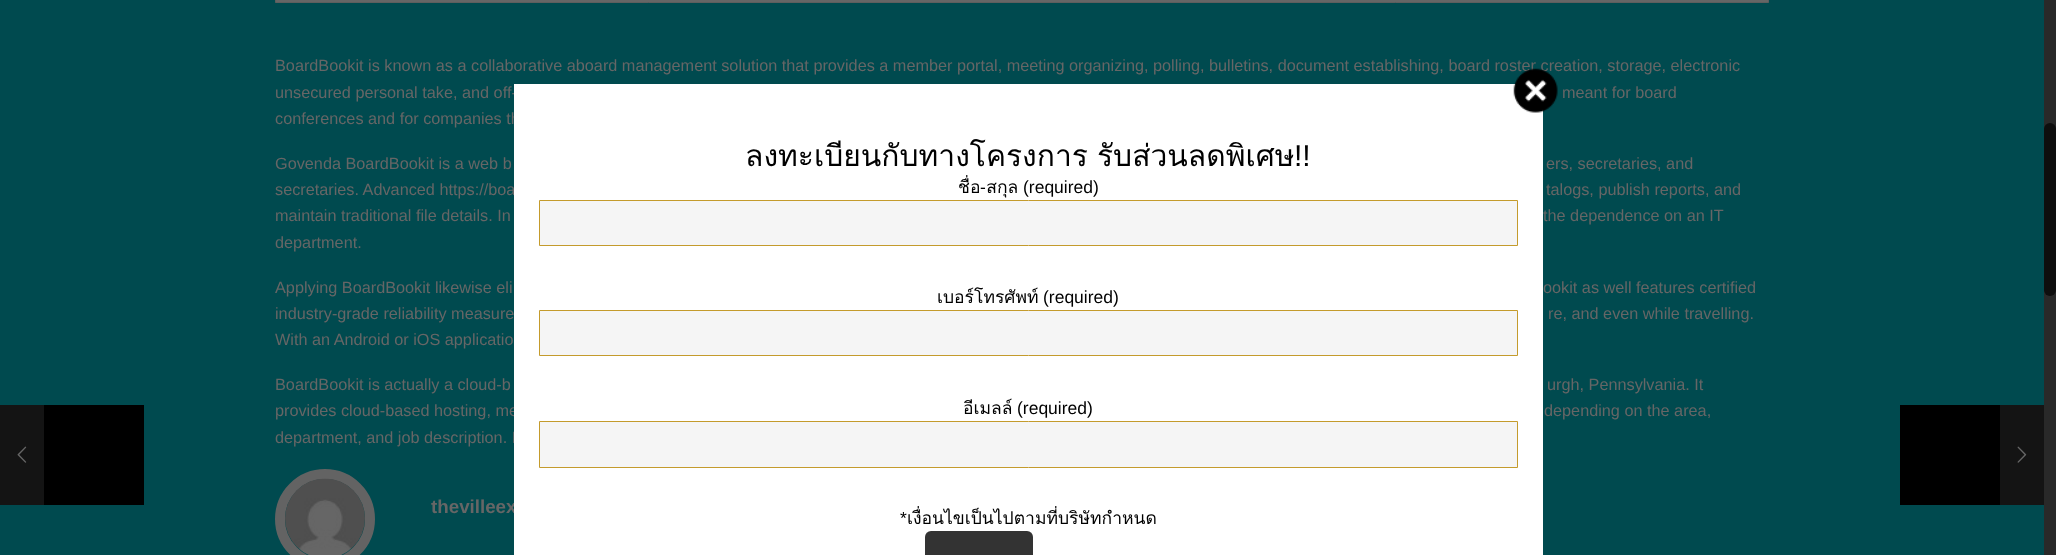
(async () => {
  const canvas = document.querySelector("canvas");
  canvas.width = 2056;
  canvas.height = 555;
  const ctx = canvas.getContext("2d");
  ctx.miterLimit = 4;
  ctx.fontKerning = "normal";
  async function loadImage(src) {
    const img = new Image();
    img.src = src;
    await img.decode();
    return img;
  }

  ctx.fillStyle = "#004a4f";
  ctx.fillRect(0, 0, 2056, 555);
  ctx.fillStyle = "#666666";
  ctx.beginPath();
  ctx.rect(275.5, -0.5, 1493, 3);
  ctx.fill();
  ctx.strokeStyle = "#5e5e5e";
  ctx.stroke();
  ctx.beginPath();
  ctx.arc(325, 519, 45, 0, Math.PI * 2);
  ctx.strokeStyle = "#636363";
  ctx.lineWidth = 10;
  ctx.stroke();
  ctx.drawImage(await loadImage("img/1.png"), 285, 478, 80, 77);
  ctx.fillStyle = "#292929";
  ctx.fillRect(2044, 0, 12, 555);
  ctx.fillStyle = "#0e0e0e";
  ctx.beginPath();
  ctx.roundRect(2044, 123, 12, 173, 6);
  ctx.fill();
  ctx.fillStyle = "#141414";
  ctx.fillRect(0, 405, 44, 100);
  ctx.drawImage(await loadImage("img/2.png"), 17, 446, 10, 17);
  for (const [x, y, w, h, color] of [
    [44, 405, 100, 100, "#000000"],
    [1900, 405, 100, 100, "#000000"],
    [2000, 405, 44, 100, "#141414"],
  ]) {
    ctx.fillStyle = color;
    ctx.fillRect(x, y, w, h);
  }
  ctx.drawImage(await loadImage("img/4.png"), 2017, 446, 10, 17);
  ctx.font = "16.25px Liberation Sans";
  ctx.fillStyle = "#666666";
  for (const [text, x, y] of [
    ["BoardBookit is known as a collaborative aboard management solution that provides a member portal, meeting organizing, polling, bulletins, document establishing, board roster creation, storage, electronic", 275, 71],
    ["unsecured personal take, and off-", 275, 98],
    ["meant for board", 1562, 98],
    ["conferences and for companies th", 275, 124],
    ["Govenda BoardBookit is a web b", 275, 169],
    ["ers, secretaries, and", 1546, 169],
    ["secretaries. Advanced https://boa", 275, 195],
    ["talogs, publish reports, and", 1546, 195],
    ["maintain traditional file details. In", 275, 221],
    ["the dependence on an IT", 1543, 221],
    ["department.", 275, 248],
    ["Applying BoardBookit likewise eli", 275, 293],
    ["ookit as well features certified", 1543, 293],
    ["industry-grade reliability measure", 275, 319],
    ["re, and even while travelling.", 1548, 319],
    ["With an Android or iOS applicatio", 275, 345],
    ["BoardBookit is actually a cloud-b", 275, 390],
    ["urgh, Pennsylvania. It", 1547, 390],
    ["provides cloud-based hosting, me", 275, 416],
    ["depending on the area,", 1544, 416],
    ["department, and job description. I", 275, 443],
  ]) {
    ctx.fillText(text, x, y);
  }
  ctx.font = "bold 18.75px Liberation Sans";
  ctx.fillText("thevilleex", 431, 513);
  ctx.fillStyle = "#ffffff";
  ctx.fillRect(514, 84, 1029, 471);
  ctx.drawImage(await loadImage("img/3.png"), 1513, 68, 45, 45);
  ctx.font = "30px Loma";
  ctx.fillStyle = "#000000";
  ctx.fillText("ลงทะเบียนกับทางโครงการ", 745, 166);
  ctx.fillText("รับส่วนลดพิเศษ", 1097, 166);
  ctx.font = "30px Liberation Sans";
  ctx.fillText("!!", 1294, 166);
  ctx.font = "17.5px Loma";
  ctx.fillText("ชื่อ สกุล", 958, 193);
  ctx.font = "17.5px Liberation Sans";
  ctx.fillText("(required)", 1023, 193);
  ctx.fillText("-", 980, 193);
  ctx.fillStyle = "#f5f5f5";
  ctx.beginPath();
  ctx.rect(539.5, 200.5, 978, 45);
  ctx.fill();
  ctx.strokeStyle = "#c49b2c";
  ctx.lineWidth = 1;
  ctx.stroke();
  ctx.font = "17.5px Loma";
  ctx.fillStyle = "#000000";
  ctx.fillText("เบอร์โทรศัพท์", 937, 303);
  ctx.font = "17.5px Liberation Sans";
  ctx.fillText("(required)", 1043, 303);
  ctx.fillStyle = "#f5f5f5";
  ctx.beginPath();
  ctx.rect(539.5, 310.5, 978, 45);
  ctx.fill();
  ctx.stroke();
  ctx.font = "17.5px Loma";
  ctx.fillStyle = "#000000";
  ctx.fillText("อีเมลล์", 963, 414);
  ctx.font = "17.5px Liberation Sans";
  ctx.fillText("(required)", 1017, 414);
  ctx.fillStyle = "#f5f5f5";
  ctx.beginPath();
  ctx.rect(539.5, 421.5, 978, 46);
  ctx.fill();
  ctx.stroke();
  ctx.fillStyle = "#000000";
  ctx.fillText("*", 900, 524);
  ctx.font = "17.5px Loma";
  ctx.fillText("เงื่อนไขเป็นไปตามที่บริษัทกำหนด", 907, 524);
  ctx.fillStyle = "#333333";
  ctx.beginPath();
  ctx.roundRect(925, 531, 108, 24, [6, 6, 0, 0]);
  ctx.fill();
})();
